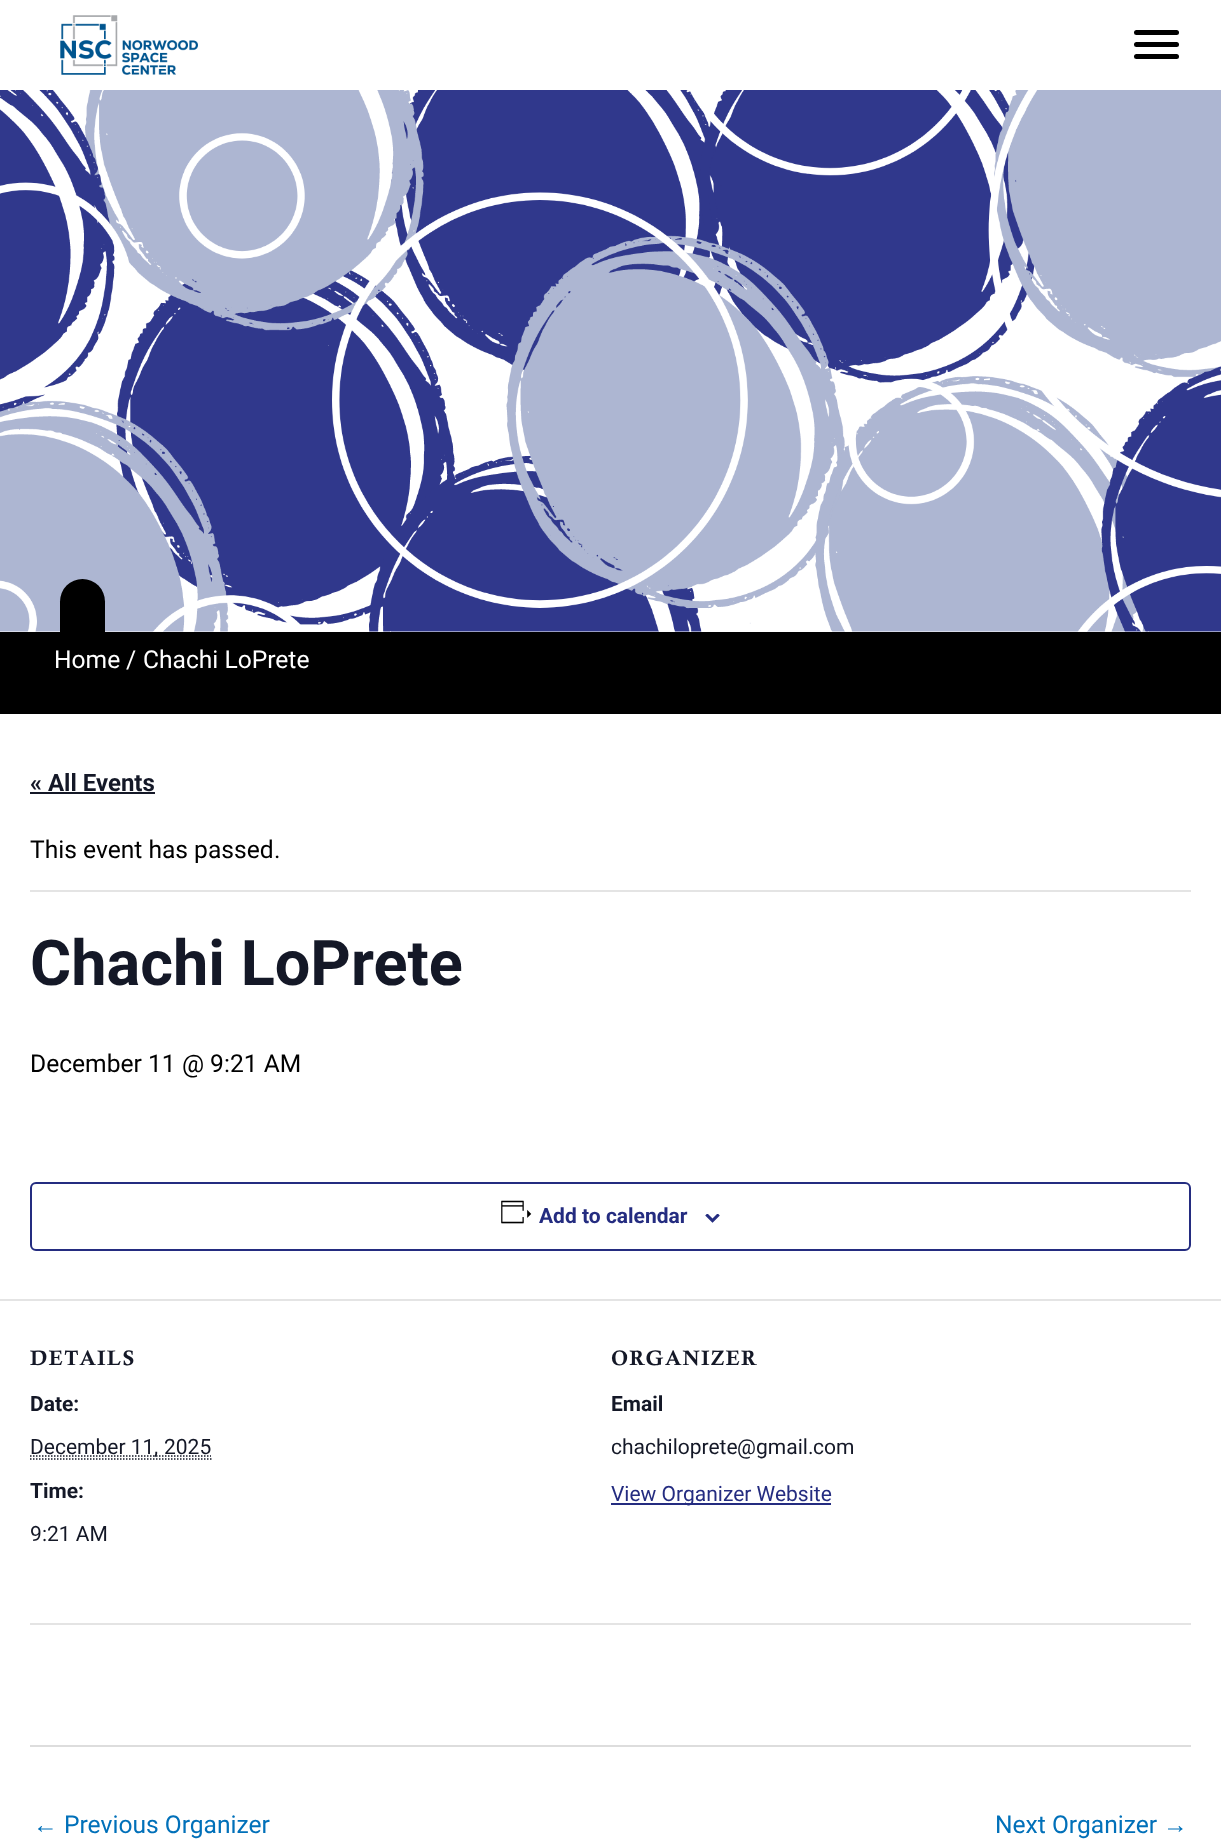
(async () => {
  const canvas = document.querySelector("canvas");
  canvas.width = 1221;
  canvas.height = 1839;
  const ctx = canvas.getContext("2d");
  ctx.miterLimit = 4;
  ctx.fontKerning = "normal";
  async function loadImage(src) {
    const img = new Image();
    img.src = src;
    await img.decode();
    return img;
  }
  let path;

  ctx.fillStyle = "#ffffff";
  ctx.fillRect(0, 0, 1221, 1839);
  ctx.drawImage(await loadImage("img/1.png"), 60, 15, 138, 60);
  ctx.fillStyle = "#000000";
  ctx.beginPath();
  ctx.roundRect(1134, 42, 45, 5, 2.5);
  ctx.fill();
  ctx.beginPath();
  ctx.roundRect(1134, 30, 45, 5, 2.5);
  ctx.fill();
  ctx.beginPath();
  ctx.roundRect(1134, 54, 45, 5, 2.5);
  ctx.fill();
  ctx.drawImage(await loadImage("img/2.png"), 0, 90, 1221, 542);
  ctx.beginPath();
  ctx.roundRect(60, 579, 45, 77, [22.5, 22.5, 0, 0]);
  ctx.fill();
  for (const [x, y, w, h, color] of [
    [0, 632, 1221, 82, "#000000"],
    [30, 792, 125, 2, "#141827"],
    [30, 890, 1161, 2, "#e4e4e4"],
  ]) {
    ctx.fillStyle = color;
    ctx.fillRect(x, y, w, h);
  }
  ctx.beginPath();
  ctx.roundRect(31, 1183, 1159, 67, 5);
  ctx.strokeStyle = "#242c80";
  ctx.lineWidth = 2;
  ctx.stroke();
  ctx.drawImage(await loadImage("img/3.png"), 501, 1200, 31, 24);
  ctx.drawImage(await loadImage("img/4.png"), 705, 1214, 15, 9);
  ctx.fillRect(0, 1299, 1221, 2);
  path = new Path2D("M30 1459H211.5");
  ctx.strokeStyle = "#141827";
  ctx.lineWidth = 1.5;
  ctx.setLineDash([1.5, 1.5]);
  ctx.stroke(path);
  path = new Path2D("M30 1456H211");
  ctx.stroke(path);
  for (const [x, y, w, h, color] of [
    [611, 1503, 220, 2, "#242c80"],
    [30, 1623, 1161, 2, "#e4e4e4"],
    [30, 1745, 1161, 2, "#dddddd"],
  ]) {
    ctx.fillStyle = color;
    ctx.fillRect(x, y, w, h);
  }
  ctx.font = "24.6px Roboto";
  ctx.fillStyle = "#ffffff";
  ctx.fillText("Home", 54, 668);
  ctx.font = "24.6px 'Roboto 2'";
  ctx.fillText("/", 126, 668);
  ctx.font = "24.6px Roboto";
  ctx.fillText("Chachi LoPrete", 143, 668);
  ctx.font = "bold 24px Roboto";
  ctx.fillStyle = "#141827";
  ctx.fillText("« All Events", 30, 791);
  ctx.font = "24.6px Roboto";
  ctx.fillStyle = "#000000";
  ctx.fillText("This event has passed", 30, 858);
  ctx.font = "24.6px 'Roboto 2'";
  ctx.fillText(".", 274, 858);
  ctx.font = "bold 63px Roboto";
  ctx.fillStyle = "#141827";
  ctx.fillText("Chachi LoPrete", 30, 985);
  ctx.font = "24.6px Roboto";
  ctx.fillStyle = "#000000";
  ctx.fillText("December 11", 30, 1072);
  ctx.font = "24.6px 'Roboto 2'";
  ctx.fillText("@", 182, 1072);
  ctx.font = "24.6px Roboto";
  ctx.fillText("9 21 AM", 210, 1072);
  ctx.font = "24.6px 'Roboto 2'";
  ctx.fillText(":", 224, 1072);
  ctx.font = "bold 21px Roboto";
  ctx.fillStyle = "#242c80";
  ctx.fillText("Add to calendar", 539, 1223);
  ctx.letterSpacing = "1.5px";
  ctx.font = "bold 21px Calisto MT";
  ctx.fillStyle = "#141827";
  ctx.fillText("DETAILS", 30, 1365);
  ctx.letterSpacing = "0px";
  ctx.font = "bold 21px Roboto";
  ctx.fillText("Date:", 30, 1411);
  ctx.font = "21px Roboto";
  ctx.fillText("December 11", 30, 1454);
  ctx.font = "21px 'Roboto 2'";
  ctx.fillText(",", 154, 1454);
  ctx.font = "21px Roboto";
  ctx.fillText("2025", 164, 1454);
  ctx.font = "bold 21px Roboto";
  ctx.fillText("Time:", 30, 1498);
  ctx.font = "21px Roboto";
  ctx.fillText("9 21 AM", 30, 1541);
  ctx.font = "21px 'Roboto 2'";
  ctx.fillText(":", 42, 1541);
  ctx.letterSpacing = "1.5px";
  ctx.font = "bold 21px Calisto MT";
  ctx.fillText("ORGANIZER", 611, 1365);
  ctx.letterSpacing = "0px";
  ctx.font = "bold 21px Roboto";
  ctx.fillText("Email", 611, 1411);
  ctx.font = "21px Roboto";
  ctx.fillText("chachiloprete", 611, 1454);
  ctx.font = "21px 'Roboto 2'";
  ctx.fillText("@", 737, 1454);
  ctx.font = "21px Roboto";
  ctx.fillText("gmail", 756, 1454);
  ctx.font = "21px 'Roboto 2'";
  ctx.fillText(".", 808, 1454);
  ctx.font = "21px Roboto";
  ctx.fillText("com", 813, 1454);
  ctx.fillStyle = "#242c80";
  ctx.fillText("View Organizer Website", 611, 1501);
  ctx.font = "24.6px Liberation Sans";
  ctx.fillStyle = "#0170b9";
  ctx.fillText("←", 33, 1833);
  ctx.font = "24.6px Roboto";
  ctx.fillText("Previous Organizer", 64, 1833);
  ctx.fillText("Next Organizer", 995, 1833);
  ctx.font = "24.6px Liberation Sans";
  ctx.fillText("→", 1163, 1833);
})();
